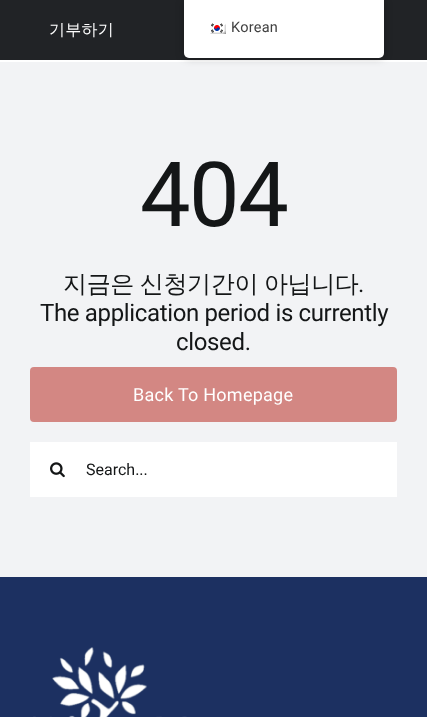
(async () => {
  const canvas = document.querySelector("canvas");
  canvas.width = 427;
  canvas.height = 717;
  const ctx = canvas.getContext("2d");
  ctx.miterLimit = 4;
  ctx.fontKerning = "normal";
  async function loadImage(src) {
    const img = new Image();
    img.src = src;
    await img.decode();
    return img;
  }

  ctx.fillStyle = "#ffffff";
  ctx.fillRect(0, 0, 427, 717);
  ctx.fillStyle = "#212326";
  ctx.fillRect(0, 0, 427, 60);
  ctx.fillStyle = "#f2f3f5";
  ctx.fillRect(0, 62, 427, 515);
  ctx.fillStyle = "rgba(0, 0, 0, 0.25)";
  ctx.filter = "blur(4px)";
  ctx.beginPath();
  ctx.roundRect(184, 0, 200, 58, 5);
  ctx.fill();
  ctx.filter = "none";
  ctx.fillStyle = "#ffffff";
  ctx.beginPath();
  ctx.roundRect(184, 0, 200, 58, [0, 0, 5, 5]);
  ctx.fill();
  ctx.drawImage(await loadImage("img/1.png"), 210, 23, 16, 11);
  ctx.fillStyle = "#d38783";
  ctx.beginPath();
  ctx.roundRect(30, 367, 367, 55, 4);
  ctx.fill();
  ctx.fillStyle = "#ffffff";
  ctx.fillRect(30, 442, 367, 55);
  ctx.drawImage(await loadImage("img/2.png"), 50, 462, 15, 16);
  ctx.fillStyle = "#1c3061";
  ctx.fillRect(0, 577, 427, 140);
  ctx.drawImage(await loadImage("img/3.png"), 33, 647, 154, 70);
  ctx.letterSpacing = "0.25px";
  ctx.font = "14.5px Roboto";
  ctx.fillStyle = "#404040";
  ctx.fillText("Korean", 231, 32);
  ctx.font = "500 16px WenQuanYi Zen Hei";
  ctx.fillStyle = "#ffffff";
  ctx.fillText("기부하기", 49, 35);
  ctx.letterSpacing = "-1.5px";
  ctx.font = "90px Roboto";
  ctx.fillStyle = "#141617";
  ctx.fillText("404", 140, 226);
  ctx.letterSpacing = "-0.35px";
  ctx.wordSpacing = "-1px";
  ctx.font = "500 24px WenQuanYi Zen Hei";
  ctx.fillText("지금은 신청기간이 아닙니다", 63, 292);
  ctx.wordSpacing = "0px";
  ctx.font = "24px Roboto";
  for (const [text, x, y] of [
    [".", 358, 292],
    ["The application period is currently", 40, 321],
    ["closed.", 176, 350],
  ]) {
    ctx.fillText(text, x, y);
  }
  ctx.letterSpacing = "0.25px";
  ctx.font = "18px Roboto";
  ctx.fillStyle = "#ffffff";
  ctx.fillText("Back To Homepage", 133, 401);
  ctx.letterSpacing = "0px";
  ctx.font = "16px Roboto";
  ctx.fillStyle = "#141617";
  ctx.fillText("Search...", 86, 475);
})();
